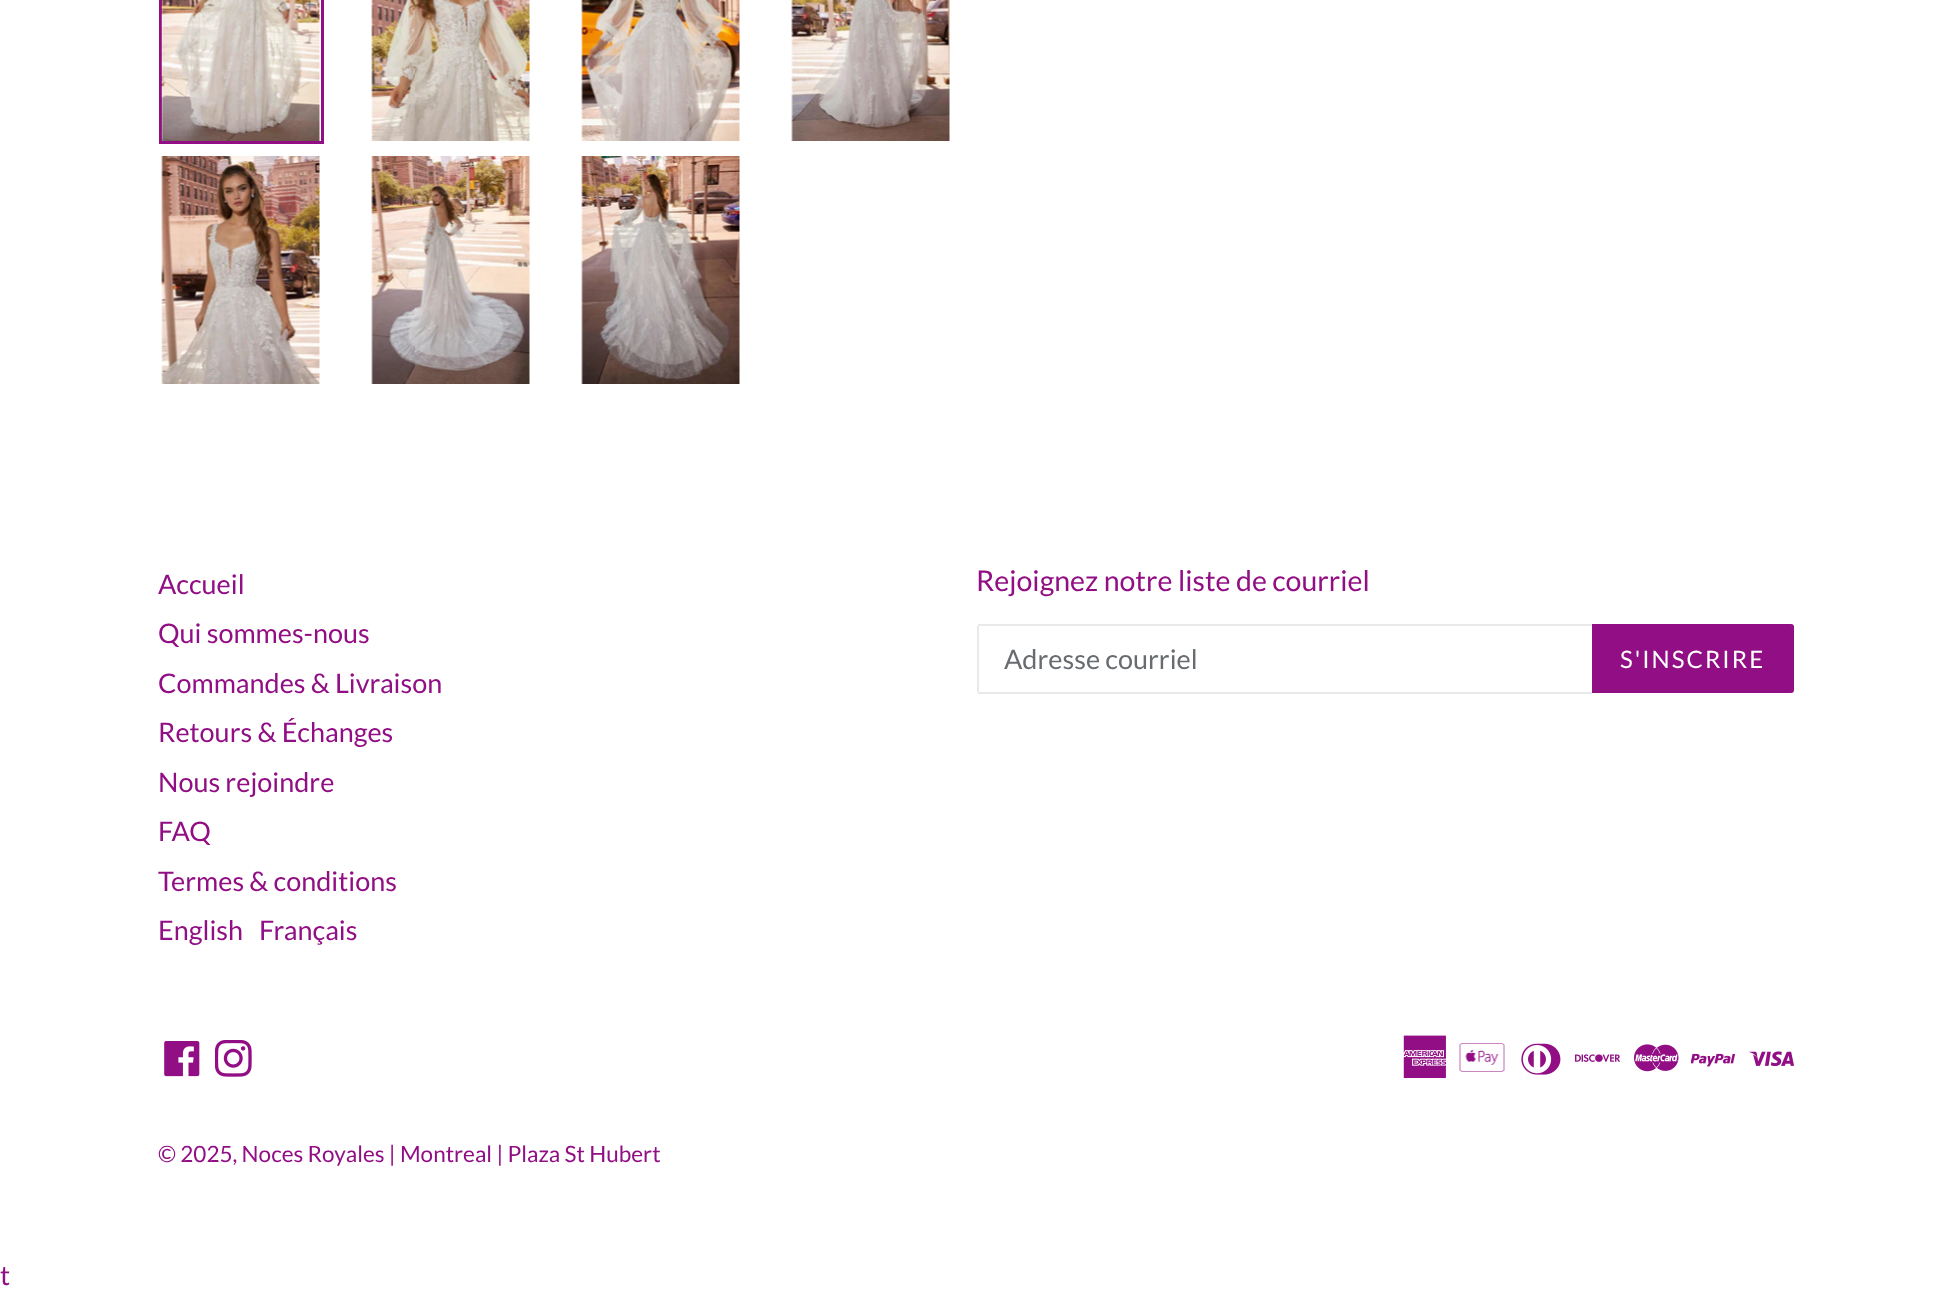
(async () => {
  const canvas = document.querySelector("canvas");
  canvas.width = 1951;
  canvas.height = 1297;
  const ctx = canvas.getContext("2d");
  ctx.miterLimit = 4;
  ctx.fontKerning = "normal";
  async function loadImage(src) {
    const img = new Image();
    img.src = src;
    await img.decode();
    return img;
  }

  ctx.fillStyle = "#ffffff";
  ctx.fillRect(0, 0, 1951, 1297);
  ctx.strokeStyle = "#910e84";
  ctx.lineWidth = 3;
  ctx.strokeRect(160.5, -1.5, 162, 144);
  ctx.drawImage(await loadImage("img/1.png"), 161, 0, 159, 141);
  ctx.drawImage(await loadImage("img/2.png"), 371, 0, 159, 141);
  ctx.drawImage(await loadImage("img/3.png"), 581, 0, 159, 141);
  ctx.drawImage(await loadImage("img/4.png"), 791, 0, 159, 141);
  ctx.drawImage(await loadImage("img/5.png"), 161, 156, 159, 228);
  ctx.drawImage(await loadImage("img/6.png"), 371, 156, 159, 228);
  ctx.drawImage(await loadImage("img/7.png"), 581, 156, 159, 228);
  for (const [x, y, w, h, color] of [
    [978, 624, 614, 2, "#e8e9eb"],
    [978, 692, 614, 2, "#e8e9eb"],
    [977, 626, 2, 66, "#e8e9eb"],
  ]) {
    ctx.fillStyle = color;
    ctx.fillRect(x, y, w, h);
  }
  ctx.fillStyle = "#910e84";
  ctx.beginPath();
  ctx.roundRect(1592, 624, 202, 69, [0, 3, 3, 0]);
  ctx.fill();
  ctx.drawImage(await loadImage("img/8.png"), 164, 1041, 36, 36);
  ctx.drawImage(await loadImage("img/9.png"), 215, 1040, 37, 37);
  ctx.drawImage(await loadImage("img/10.png"), 1403, 1035, 44, 43);
  ctx.drawImage(await loadImage("img/11.png"), 1459, 1043, 46, 29);
  ctx.drawImage(await loadImage("img/12.png"), 1521, 1043, 40, 32);
  ctx.drawImage(await loadImage("img/13.png"), 1575, 1054, 45, 8);
  ctx.drawImage(await loadImage("img/14.png"), 1634, 1044, 45, 28);
  ctx.drawImage(await loadImage("img/15.png"), 1691, 1053, 45, 14);
  ctx.drawImage(await loadImage("img/16.png"), 1749, 1051, 45, 15);
  ctx.font = "27px Lato";
  for (const [text, x, y] of [
    ["Accueil", 158, 594],
    ["Qui sommes-nous", 158, 643],
    ["Commandes & Livraison", 158, 693],
    ["Retours & Échanges", 158, 742],
    ["Nous rejoindre", 158, 792],
    ["FAQ", 158, 841],
    ["Termes & conditions", 158, 891],
    ["English", 158, 940],
    ["Français", 259, 940],
  ]) {
    ctx.fillText(text, x, y);
  }
  ctx.font = "28.5px Lato";
  ctx.fillText("Rejoignez notre liste de courriel", 976, 591);
  ctx.font = "27px Lato";
  ctx.fillStyle = "#676c70";
  ctx.fillText("Adresse courriel", 1004, 669);
  ctx.letterSpacing = "2px";
  ctx.font = "24px Lato";
  ctx.fillStyle = "#ffffff";
  ctx.fillText("S'INSCRIRE", 1620, 668);
  ctx.letterSpacing = "0px";
  ctx.font = "22.5px Lato";
  ctx.fillStyle = "#910e84";
  ctx.fillText("© 2025, Noces Royales | Montreal | Plaza St Hubert", 158, 1162);
  ctx.font = "27px Lato";
  ctx.fillText("t", 0, 1285);
})();
